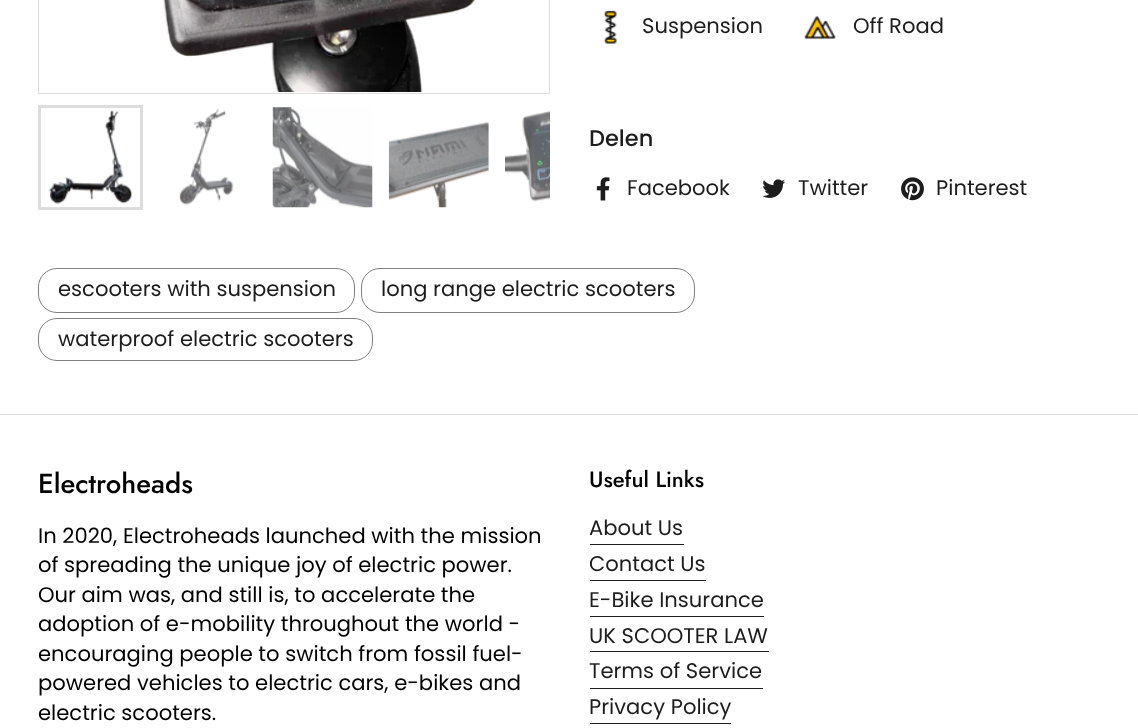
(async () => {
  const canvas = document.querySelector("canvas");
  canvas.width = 1138;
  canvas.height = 728;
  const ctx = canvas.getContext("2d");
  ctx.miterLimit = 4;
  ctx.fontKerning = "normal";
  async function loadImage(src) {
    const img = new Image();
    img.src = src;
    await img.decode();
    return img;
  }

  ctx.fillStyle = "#ffffff";
  ctx.fillRect(0, 0, 1138, 728);
  ctx.strokeStyle = "#dddddd";
  ctx.strokeRect(38.5, -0.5, 511, 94);
  ctx.drawImage(await loadImage("img/1.png"), 163, 0, 312, 92);
  ctx.lineWidth = 3;
  ctx.strokeRect(39.5, 106.5, 102, 102);
  ctx.drawImage(await loadImage("img/2.png"), 48, 110, 85, 95);
  ctx.drawImage(await loadImage("img/3.png"), 179, 108, 55, 97);
  ctx.drawImage(await loadImage("img/4.png"), 272, 107, 101, 101);
  ctx.drawImage(await loadImage("img/5.png"), 388, 122, 101, 86);
  ctx.drawImage(await loadImage("img/6.png"), 505, 110, 45, 92);
  ctx.drawImage(await loadImage("img/7.png"), 603, 10, 15, 34);
  ctx.drawImage(await loadImage("img/8.png"), 804, 15, 32, 25);
  ctx.drawImage(await loadImage("img/9.png"), 596, 177, 14, 24);
  ctx.drawImage(await loadImage("img/10.png"), 762, 179, 23, 19);
  ctx.drawImage(await loadImage("img/11.png"), 901, 177, 23, 24);
  ctx.beginPath();
  ctx.roundRect(38.5, 268.5, 316, 44, 18.5);
  ctx.strokeStyle = "#808080";
  ctx.lineWidth = 1;
  ctx.stroke();
  ctx.beginPath();
  ctx.roundRect(361.5, 268.5, 333, 44, 18.5);
  ctx.stroke();
  ctx.beginPath();
  ctx.roundRect(38.5, 318.5, 334, 42, 18.5);
  ctx.stroke();
  for (const [x, y, w, h, color] of [
    [0, 414, 1138, 1, "#d9d9d9"],
    [590, 544, 94, 1, "#1d1d1d"],
    [590, 580, 116, 1, "#1d1d1d"],
    [590, 616, 174, 1, "#1d1d1d"],
    [590, 651, 179, 1, "#1d1d1d"],
    [590, 688, 173, 1, "#1d1d1d"],
    [590, 723, 141, 1, "#1d1d1d"],
  ]) {
    ctx.fillStyle = color;
    ctx.fillRect(x, y, w, h);
  }
  ctx.font = "21.1px Poppins";
  ctx.fillText("Suspension", 642, 33);
  ctx.fillText("Off Road", 853, 33);
  ctx.font = "500 22.5px Poppins";
  ctx.fillText("Delen", 589, 146);
  ctx.font = "21.1px Poppins";
  for (const [text, x, y] of [
    ["Facebook", 627, 195],
    ["Twitter", 798, 195],
    ["Pinterest", 936, 195],
    ["escooters with suspension", 58, 296],
    ["long range electric scooters", 381, 296],
    ["waterproof electric scooters", 58, 346],
  ]) {
    ctx.fillText(text, x, y);
  }
  ctx.font = "500 27.5px Jost";
  ctx.fillStyle = "#000000";
  ctx.fillText("Electroheads", 38, 493);
  ctx.font = "21.1px Poppins";
  for (const [text, x, y] of [
    ["In 2020, Electroheads launched with the mission", 38, 543],
    ["of spreading the unique joy of electric power.", 38, 572],
    ["Our aim was, and still is, to accelerate the", 38, 602],
    ["adoption of e-mobility throughout the world -", 38, 631],
    ["encouraging people to switch from fossil fuel-", 38, 661],
    ["powered vehicles to electric cars, e-bikes and", 38, 690],
    ["electric scooters.", 38, 720],
  ]) {
    ctx.fillText(text, x, y);
  }
  ctx.font = "500 22px Jost";
  ctx.fillText("Useful Links", 589, 487);
  ctx.font = "21.1px Poppins";
  ctx.fillStyle = "#1d1d1d";
  for (const [text, x, y] of [
    ["About Us", 589, 535],
    ["Contact Us", 589, 571],
    ["E-Bike Insurance", 589, 607],
    ["UK SCOOTER LAW", 589, 643],
    ["Terms of Service", 589, 678],
    ["Privacy Policy", 589, 714],
  ]) {
    ctx.fillText(text, x, y);
  }
})();
